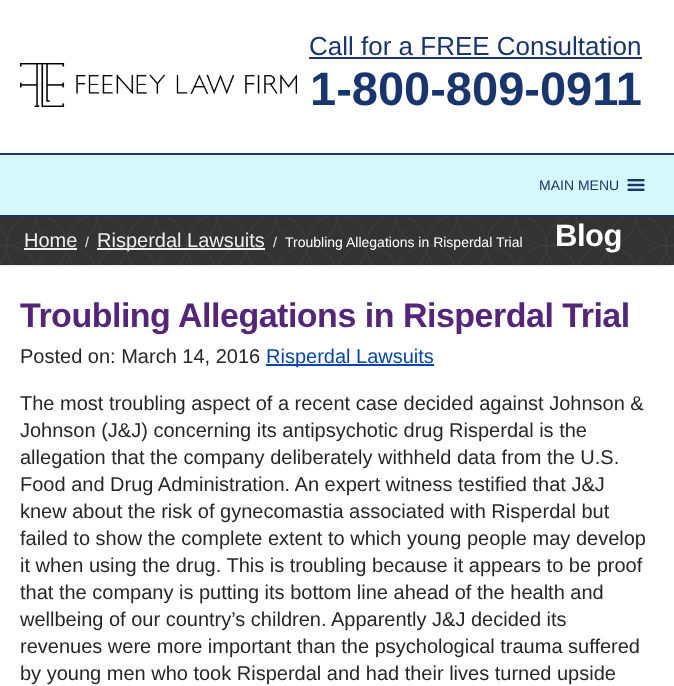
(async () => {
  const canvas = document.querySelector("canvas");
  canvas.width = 674;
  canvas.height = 686;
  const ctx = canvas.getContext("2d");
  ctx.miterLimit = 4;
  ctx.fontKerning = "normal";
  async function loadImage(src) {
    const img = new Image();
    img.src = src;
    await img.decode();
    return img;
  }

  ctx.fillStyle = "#ffffff";
  ctx.fillRect(0, 0, 674, 686);
  ctx.drawImage(await loadImage("img/1.png"), 20, 63, 277, 44);
  ctx.fillStyle = "#19356d";
  ctx.fillRect(309, 57, 333, 2);
  ctx.fillStyle = "rgba(0, 0, 0, 0.1)";
  ctx.filter = "blur(1px)";
  ctx.beginPath();
  ctx.rect(0, 218, 674, 48);
  ctx.fill();
  ctx.filter = "none";
  for (const [x, y, w, h, color] of [
    [0, 155, 674, 60, "#d4f8fc"],
    [0, 153, 674, 2, "#19356d"],
    [0, 215, 674, 2, "#19356d"],
  ]) {
    ctx.fillStyle = color;
    ctx.fillRect(x, y, w, h);
  }
  ctx.drawImage(await loadImage("img/2.png"), 627, 179, 18, 12);
  ctx.fillStyle = "#333333";
  ctx.fillRect(0, 217, 674, 48);
  ctx.drawImage(await loadImage("img/3.png"), 0, 217, 674, 48);
  for (const [x, y, w, h, color] of [
    [24, 248, 53, 2, "#efefef"],
    [97, 248, 168, 2, "#efefef"],
    [266, 364, 168, 2, "#0645ad"],
  ]) {
    ctx.fillStyle = color;
    ctx.fillRect(x, y, w, h);
  }
  ctx.font = "26px Liberation Sans";
  ctx.fillStyle = "#19356d";
  ctx.fillText("Call for a FREE Consultation", 309, 55);
  ctx.font = "bold 47px Liberation Sans";
  ctx.fillText("1-800-809-0911", 310, 105);
  ctx.font = "14px Liberation Sans";
  ctx.fillText("MAIN MENU", 539, 190);
  ctx.font = "20px Liberation Sans";
  ctx.fillStyle = "#efefef";
  ctx.fillText("Home", 24, 247);
  ctx.font = "14px Liberation Sans";
  ctx.fillText("/", 85, 247);
  ctx.font = "20px Liberation Sans";
  ctx.fillText("Risperdal Lawsuits", 97, 247);
  ctx.font = "14px Liberation Sans";
  ctx.fillText("/", 273, 247);
  ctx.fillStyle = "#ffffff";
  ctx.fillText("Troubling Allegations in Risperdal Trial", 285, 247);
  ctx.letterSpacing = "-0.5px";
  ctx.font = "bold 31px Liberation Sans";
  ctx.fillText("Blog", 555, 246);
  ctx.font = "bold 34px Liberation Sans";
  ctx.fillStyle = "#552579";
  ctx.fillText("Troubling Allegations in Risperdal Trial", 20, 327);
  ctx.letterSpacing = "0px";
  ctx.font = "20px Liberation Sans";
  ctx.fillStyle = "#262626";
  ctx.fillText("Posted on: March 14, 2016", 20, 363);
  ctx.fillStyle = "#0645ad";
  ctx.fillText("Risperdal Lawsuits", 266, 363);
  ctx.fillStyle = "#262626";
  for (const [text, x, y] of [
    ["The most troubling aspect of a recent case decided against Johnson &", 20, 410],
    ["Johnson (J&J) concerning its antipsychotic drug Risperdal is the", 20, 437],
    ["allegation that the company deliberately withheld data from the U.S.", 20, 464],
    ["Food and Drug Administration. An expert witness testified that J&J", 20, 491],
    ["knew about the risk of gynecomastia associated with Risperdal but", 20, 518],
    ["failed to show the complete extent to which young people may develop", 20, 545],
    ["it when using the drug. This is troubling because it appears to be proof", 20, 572],
    ["that the company is putting its bottom line ahead of the health and", 20, 599],
    ["wellbeing of our country’s children. Apparently J&J decided its", 20, 626],
    ["revenues were more important than the psychological trauma suffered", 20, 653],
    ["by young men who took Risperdal and had their lives turned upside", 20, 680],
  ]) {
    ctx.fillText(text, x, y);
  }
})();
